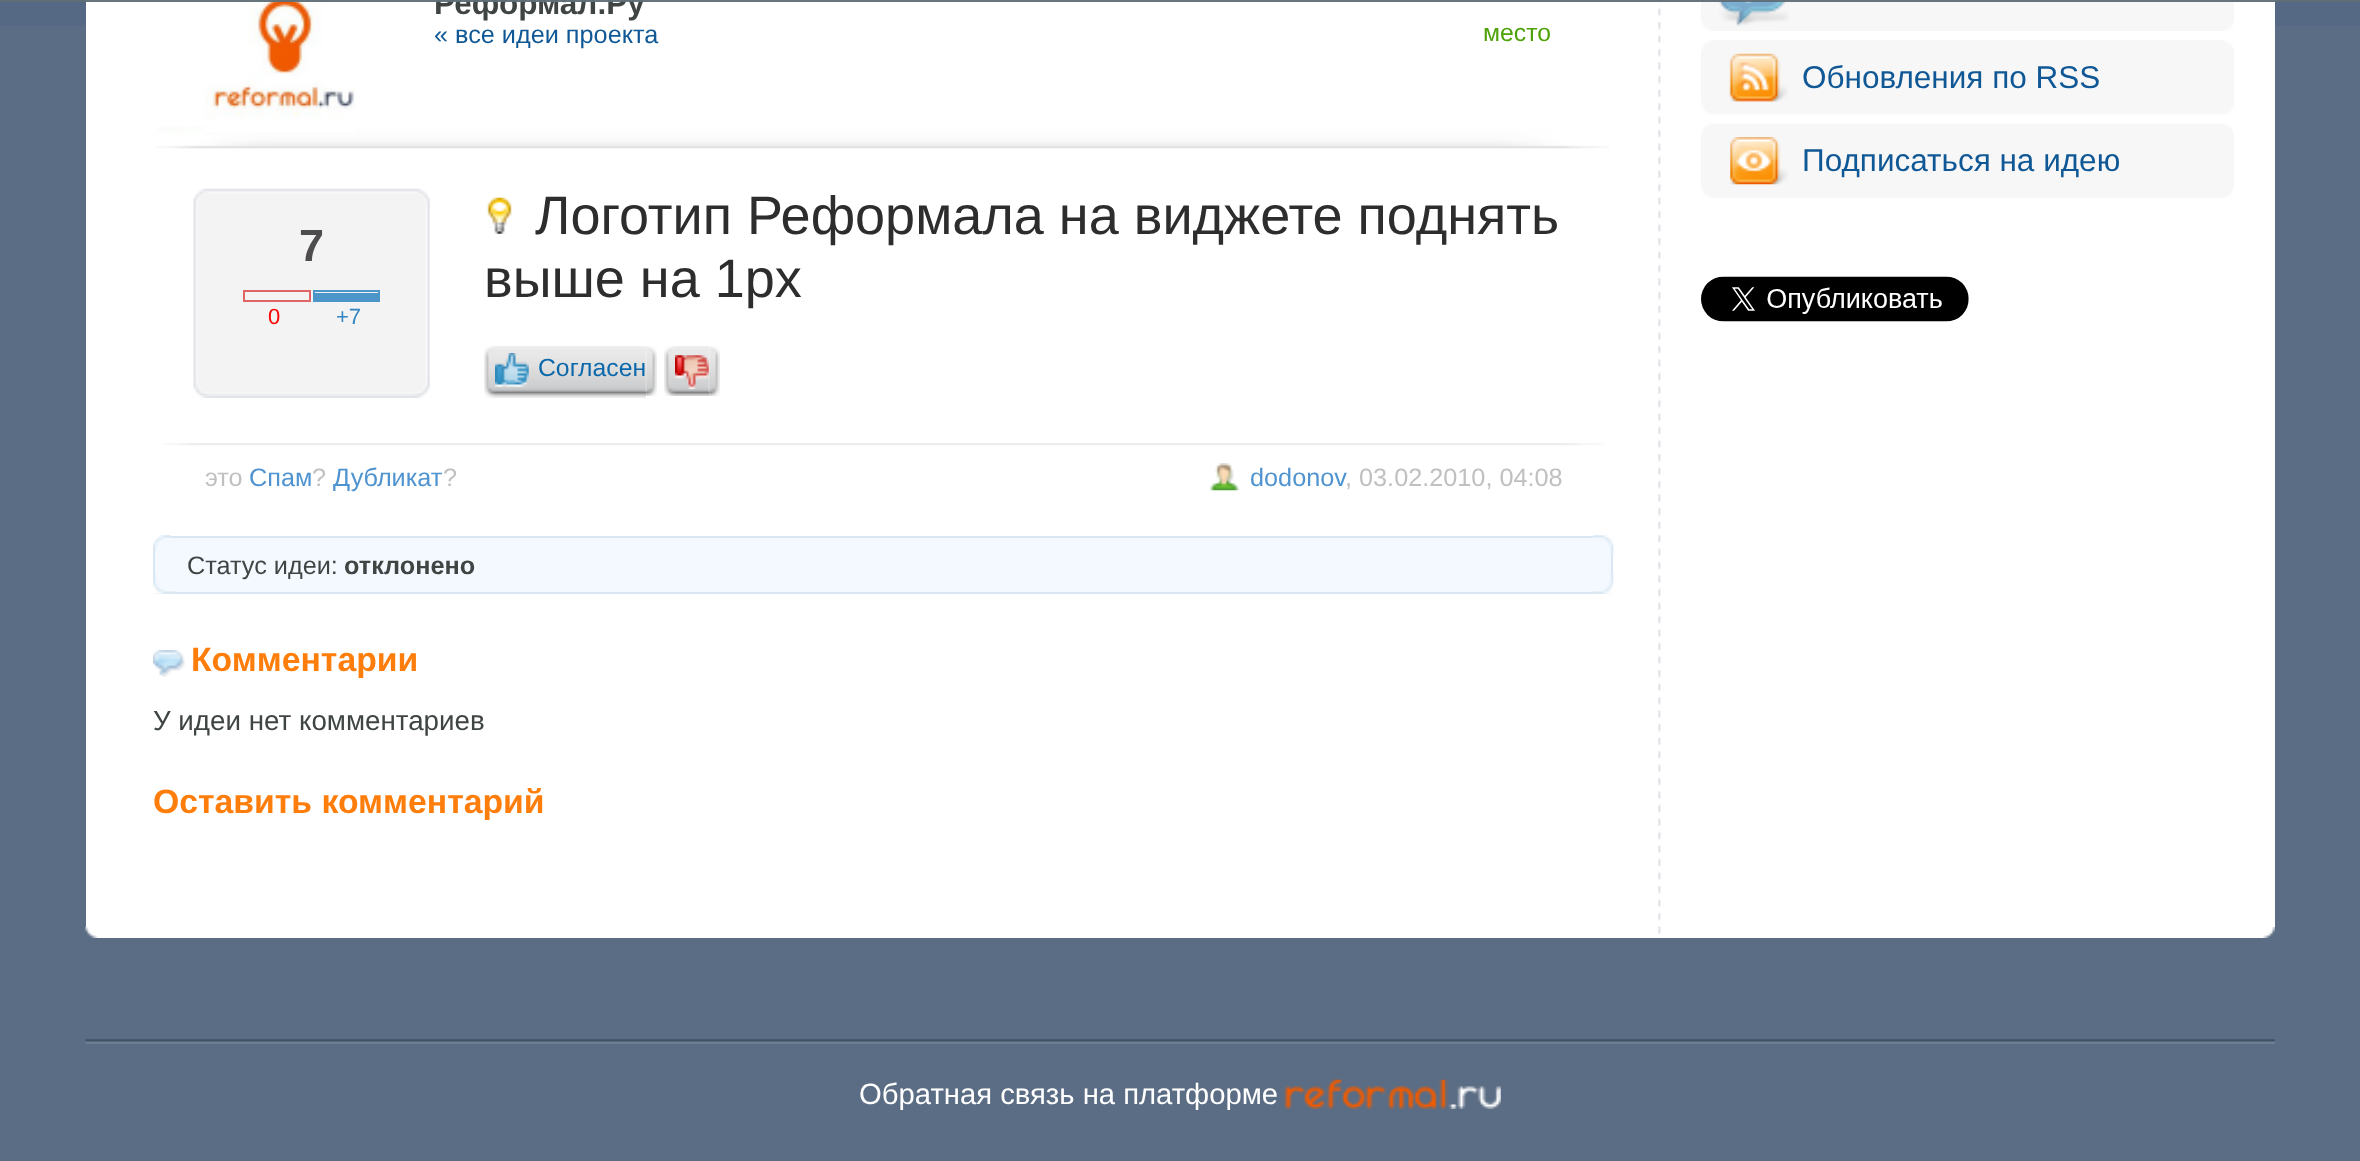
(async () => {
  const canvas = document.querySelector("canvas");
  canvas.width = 2360;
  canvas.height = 1161;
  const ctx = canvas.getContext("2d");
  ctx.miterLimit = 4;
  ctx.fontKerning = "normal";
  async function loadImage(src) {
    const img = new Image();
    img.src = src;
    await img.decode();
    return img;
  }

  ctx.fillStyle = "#5b6d84";
  ctx.fillRect(0, 0, 2360, 1161);
  ctx.fillStyle = "#566984";
  ctx.fillRect(0, 0, 2360, 26);
  ctx.drawImage(await loadImage("img/26.png"), 85, 926, 2190, 12);
  ctx.fillStyle = "#ffffff";
  ctx.fillRect(86, 0, 2189, 927);
  ctx.drawImage(await loadImage("img/1.png"), 1658, 0, 3, 927);
  ctx.drawImage(await loadImage("img/2.png"), 157, 126, 1453, 23);
  ctx.drawImage(await loadImage("img/3.png"), 205, 0, 151, 132);
  ctx.drawImage(await loadImage("img/4.png"), 193, 188, 237, 210);
  ctx.strokeStyle = "#e06666";
  ctx.lineWidth = 2;
  ctx.strokeRect(244, 291, 66, 10);
  ctx.strokeStyle = "#4c95c8";
  ctx.strokeRect(314, 291, 65, 10);
  ctx.fillStyle = "#4c95c8";
  ctx.fillRect(315, 293, 63, 7);
  ctx.drawImage(await loadImage("img/5.png"), 487, 197, 25, 37);
  ctx.drawImage(await loadImage("img/6.png"), 645, 346, 12, 50);
  ctx.drawImage(await loadImage("img/7.png"), 484, 346, 162, 52);
  ctx.drawImage(await loadImage("img/8.png"), 495, 353, 34, 34);
  ctx.drawImage(await loadImage("img/9.png"), 708, 346, 12, 50);
  ctx.drawImage(await loadImage("img/10.png"), 664, 346, 45, 50);
  ctx.drawImage(await loadImage("img/11.png"), 675, 355, 34, 34);
  ctx.drawImage(await loadImage("img/12.png"), 163, 443, 1440, 3);
  ctx.drawImage(await loadImage("img/13.png"), 1210, 463, 30, 28);
  ctx.fillStyle = "#f3f9ff";
  ctx.beginPath();
  ctx.rect(154, 537, 1458, 56);
  ctx.fill();
  ctx.strokeStyle = "#d8e7f3";
  ctx.stroke();
  ctx.drawImage(await loadImage("img/14.png"), 153, 535, 18, 18);
  ctx.drawImage(await loadImage("img/15.png"), 1593, 535, 21, 21);
  ctx.drawImage(await loadImage("img/16.png"), 153, 573, 23, 21);
  ctx.drawImage(await loadImage("img/17.png"), 1593, 573, 21, 21);
  ctx.drawImage(await loadImage("img/18.png"), 153, 650, 32, 27);
  ctx.drawImage(await loadImage("img/19.png"), 1701, 0, 533, 31);
  ctx.drawImage(await loadImage("img/20.png"), 1719, 0, 70, 27);
  ctx.drawImage(await loadImage("img/21.png"), 1701, 40, 533, 75);
  ctx.drawImage(await loadImage("img/22.png"), 1729, 53, 59, 49);
  ctx.drawImage(await loadImage("img/23.png"), 1701, 123, 533, 75);
  ctx.drawImage(await loadImage("img/24.png"), 1730, 137, 58, 48);
  ctx.drawImage(await loadImage("img/25.png"), 1701, 276, 268, 46);
  ctx.drawImage(await loadImage("img/27.png"), 85, 1039, 2190, 5);
  ctx.drawImage(await loadImage("img/28.png"), 1284, 1079, 217, 30);
  ctx.font = "bold 31.5px Liberation Sans";
  ctx.fillStyle = "#3f4543";
  ctx.fillText("Реформал.Ру", 434, 14);
  ctx.fillStyle = "rgba(237, 237, 237, 0.8)";
  ctx.fillRect(0, 0, 2360, 2);
  ctx.fillStyle = "rgba(68, 85, 96, 0.8)";
  ctx.fillRect(0, 0, 2360, 2);
  ctx.font = "25.25px Liberation Sans";
  ctx.fillStyle = "#105895";
  ctx.fillText("« все идеи проекта", 434, 43);
  ctx.font = "24.75px Liberation Sans";
  ctx.fillStyle = "#4ca206";
  ctx.fillText("место", 1483, 41);
  ctx.font = "bold 45px Liberation Sans";
  ctx.fillStyle = "#4e4c4c";
  ctx.fillText("7", 299, 261);
  ctx.font = "22px Liberation Sans";
  ctx.fillStyle = "#fc0707";
  ctx.fillText("0", 268, 324);
  ctx.fillStyle = "#3285c0";
  ctx.fillText("+7", 336, 324);
  ctx.font = "54px Liberation Sans";
  ctx.fillStyle = "#2d2d2d";
  ctx.fillText("Логотип Реформала на виджете поднять", 535, 234);
  ctx.fillText("выше на 1px", 484, 297);
  ctx.font = "24.75px Liberation Sans";
  ctx.fillStyle = "#0b68aa";
  ctx.fillText("Согласен", 538, 376);
  ctx.font = "25.25px Liberation Sans";
  ctx.fillStyle = "#c0c0c0";
  ctx.fillText("это", 205, 486);
  ctx.fillStyle = "#4f94d0";
  ctx.fillText("Cпам", 249, 486);
  ctx.fillStyle = "#c0c0c0";
  ctx.fillText("?", 312, 486);
  ctx.fillStyle = "#4f94d0";
  ctx.fillText("Дубликат", 333, 486);
  ctx.fillStyle = "#c0c0c0";
  ctx.fillText("?", 443, 486);
  ctx.fillStyle = "#4f94d0";
  ctx.fillText("dodonov", 1250, 486);
  ctx.fillStyle = "#c0c0c0";
  ctx.fillText(", 03.02.2010, 04:08", 1345, 486);
  ctx.fillStyle = "#3f4543";
  ctx.fillText("Статус идеи:", 187, 574);
  ctx.font = "bold 25.25px Liberation Sans";
  ctx.fillText("отклонено", 344, 574);
  ctx.font = "bold 33.75px Liberation Sans";
  ctx.fillStyle = "#ff7e0b";
  ctx.fillText("Комментарии", 191, 671);
  ctx.font = "27.75px Liberation Sans";
  ctx.fillStyle = "#3f4543";
  ctx.fillText("У идеи нет комментариев", 153, 730);
  ctx.font = "bold 33.75px Liberation Sans";
  ctx.fillStyle = "#ff7e0b";
  ctx.fillText("Оставить комментарий", 153, 813);
  ctx.font = "31.5px Liberation Sans";
  ctx.fillStyle = "#105895";
  ctx.fillText("Обновления по RSS", 1802, 88);
  ctx.fillText("Подписаться на идею", 1802, 171);
  ctx.font = "29.25px Liberation Sans";
  ctx.fillStyle = "#ffffff";
  ctx.fillText("Обратная связь на платформе", 859, 1104);
})();
